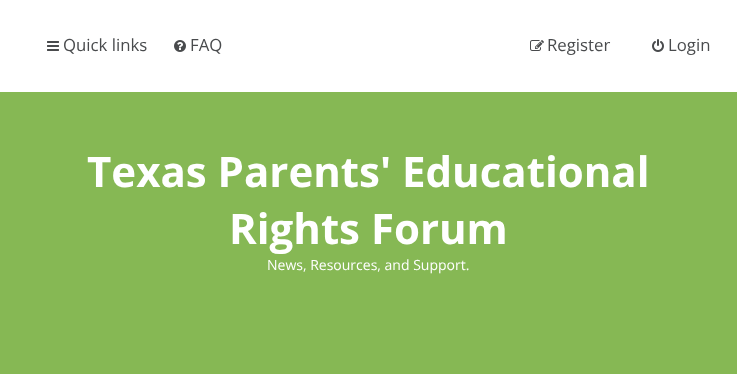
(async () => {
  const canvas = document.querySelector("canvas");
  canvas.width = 737;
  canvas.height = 377;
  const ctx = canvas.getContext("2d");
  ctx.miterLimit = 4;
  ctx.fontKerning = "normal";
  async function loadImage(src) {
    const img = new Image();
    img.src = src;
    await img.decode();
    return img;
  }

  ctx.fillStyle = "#ffffff";
  ctx.fillRect(0, 0, 737, 377);
  ctx.drawImage(await loadImage("img/1.png"), 47, 41, 12, 10);
  ctx.drawImage(await loadImage("img/2.png"), 174, 40, 12, 12);
  ctx.drawImage(await loadImage("img/3.png"), 530, 40, 14, 11);
  ctx.drawImage(await loadImage("img/4.png"), 652, 39, 12, 13);
  ctx.fillStyle = "#86b854";
  ctx.fillRect(0, 92, 737, 282);
  ctx.font = "16.75px Open Sans";
  ctx.fillStyle = "#494b4d";
  for (const [text, x, y] of [
    ["Quick links", 63, 51],
    ["FAQ", 190, 51],
    ["Register", 547, 51],
    ["Login", 668, 51],
  ]) {
    ctx.fillText(text, x, y);
  }
  ctx.font = "bold 42px Open Sans";
  ctx.fillStyle = "#ffffff";
  ctx.fillText("Texas Parents' Educational", 87, 187);
  ctx.fillText("Rights Forum", 229, 244);
  ctx.font = "14px Open Sans";
  ctx.fillText("News, Resources, and Support.", 267, 270);
})();
